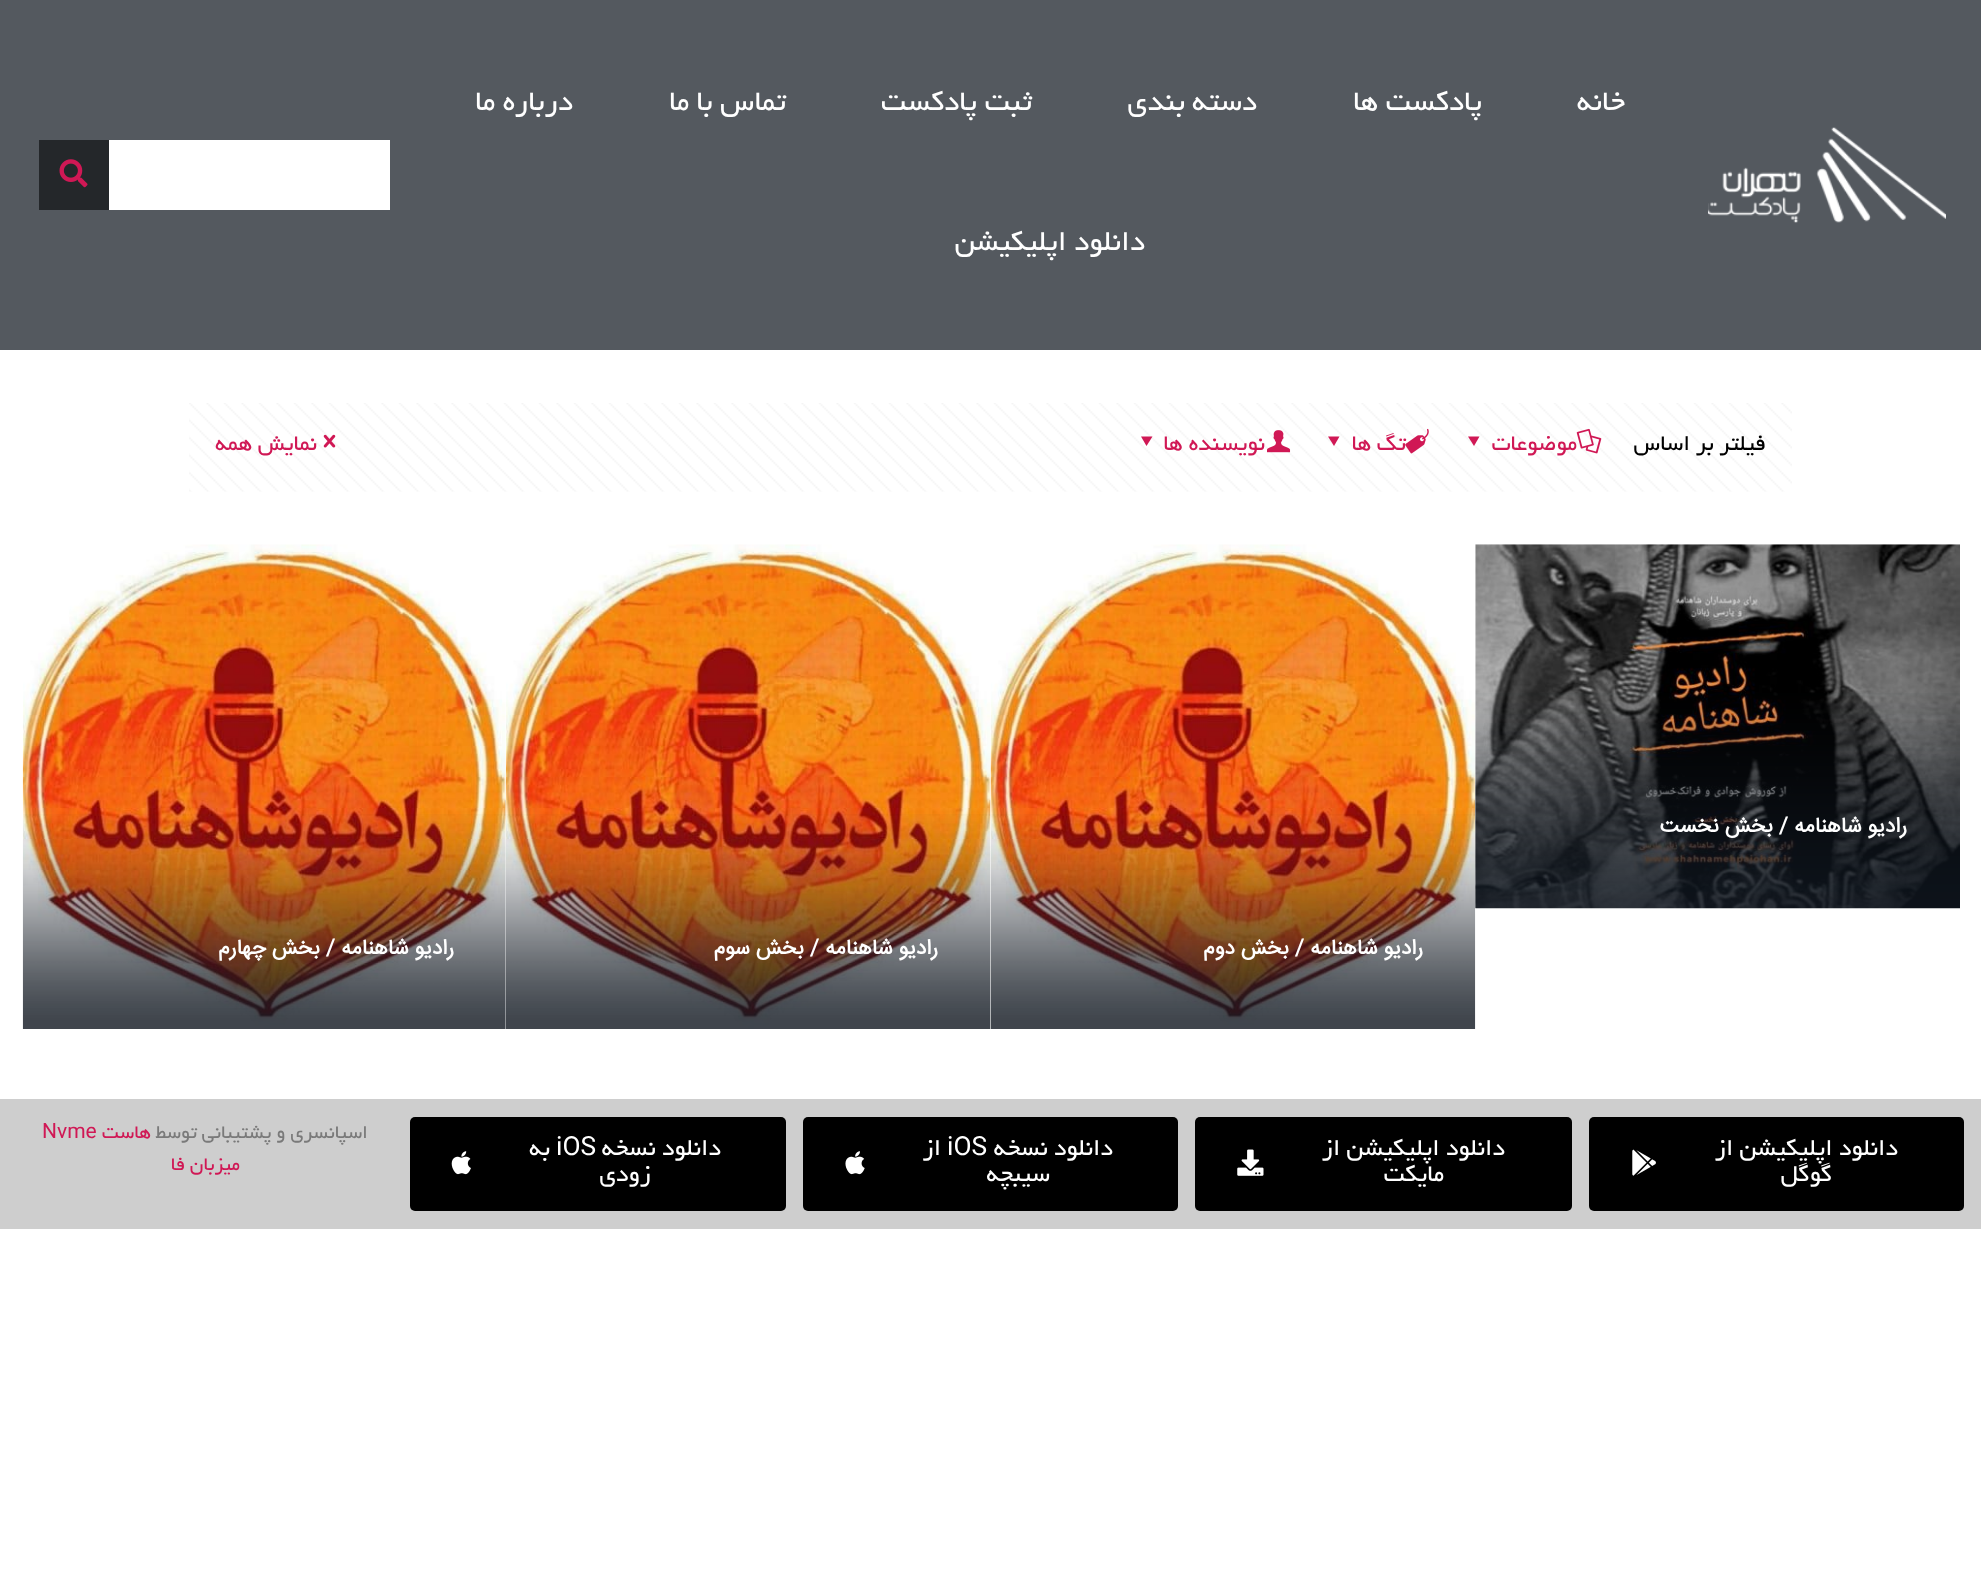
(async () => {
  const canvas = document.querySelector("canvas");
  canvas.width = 1981;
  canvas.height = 1594;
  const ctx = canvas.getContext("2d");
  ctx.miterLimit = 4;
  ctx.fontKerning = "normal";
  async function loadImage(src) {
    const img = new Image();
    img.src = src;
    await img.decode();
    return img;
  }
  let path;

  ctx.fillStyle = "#ffffff";
  ctx.fillRect(0, 0, 1981, 1594);
  ctx.fillStyle = "#54595f";
  ctx.fillRect(0, 0, 1981, 350);
  ctx.drawImage(await loadImage("img/1.png"), 1708, 127, 238, 96);
  ctx.fillStyle = "#ffffff";
  ctx.fillRect(109, 140, 281, 70);
  ctx.fillStyle = "#24272a";
  ctx.fillRect(39, 140, 70, 70);
  ctx.drawImage(await loadImage("img/2.png"), 59, 159, 29, 29);
  ctx.drawImage(await loadImage("img/3.png"), 189, 403, 1603, 89);
  ctx.drawImage(await loadImage("img/4.png"), 1576, 428, 26, 26);
  ctx.fillStyle = "#d01855";
  path = new Path2D("M1479.5 436.5L1474 446L1468 436.5Z");
  ctx.fill(path);
  ctx.drawImage(await loadImage("img/5.png"), 1405, 428, 24, 26);
  path = new Path2D("M1339.5 436.5L1334 446L1328 436.5Z");
  ctx.fill(path);
  ctx.drawImage(await loadImage("img/6.png"), 1267, 430, 24, 23);
  path = new Path2D("M1152.5 436.5L1146.5 446L1141 436.5Z");
  ctx.fill(path);
  ctx.drawImage(await loadImage("img/7.png"), 323, 434, 13, 14);
  ctx.drawImage(await loadImage("img/8.png"), 1475, 544, 485, 365);
  ctx.drawImage(await loadImage("img/9.png"), 1475, 693, 485, 216);
  ctx.drawImage(await loadImage("img/10.png"), 990, 544, 486, 481);
  ctx.drawImage(await loadImage("img/11.png"), 990, 814, 486, 215);
  ctx.drawImage(await loadImage("img/12.png"), 505, 544, 486, 485);
  ctx.drawImage(await loadImage("img/13.png"), 505, 814, 486, 215);
  ctx.drawImage(await loadImage("img/14.png"), 22, 544, 484, 485);
  ctx.drawImage(await loadImage("img/15.png"), 22, 814, 484, 215);
  ctx.fillStyle = "#cecece";
  ctx.fillRect(0, 1099, 1981, 130);
  ctx.fillStyle = "#000000";
  ctx.beginPath();
  ctx.roundRect(1589, 1117, 375, 94, 5);
  ctx.fill();
  ctx.drawImage(await loadImage("img/16.png"), 1632, 1149, 24, 27);
  ctx.beginPath();
  ctx.roundRect(1195, 1117, 377, 94, 5);
  ctx.fill();
  ctx.drawImage(await loadImage("img/17.png"), 1237, 1149, 27, 27);
  ctx.beginPath();
  ctx.roundRect(803, 1117, 375, 94, 5);
  ctx.fill();
  ctx.drawImage(await loadImage("img/18.png"), 845, 1151, 20, 24);
  ctx.beginPath();
  ctx.roundRect(410, 1117, 376, 94, 5);
  ctx.fill();
  ctx.drawImage(await loadImage("img/19.png"), 451, 1151, 20, 24);
  ctx.direction = "rtl";
  ctx.font = "31.5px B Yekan";
  ctx.fillStyle = "#ffffff";
  for (const [text, x, y] of [
    ["خانه", 1625, 110],
    ["پادکست ها", 1482, 110],
    ["دسته بندی", 1257, 110],
    ["ثبت پادکست", 1032, 110],
    ["تماس با ما", 786, 110],
    ["درباره ما", 573, 110],
    ["دانلود اپلیکیشن", 1145, 250],
  ]) {
    ctx.fillText(text, x, y);
  }
  ctx.font = "24.5px B Yekan";
  ctx.fillStyle = "#000000";
  ctx.fillText("فیلتر بر اساس", 1766, 450);
  ctx.fillStyle = "#d01855";
  for (const [text, x, y] of [
    ["موضوعات", 1577, 450],
    ["تگ ها", 1406, 450],
    ["نویسنده ها", 1265, 450],
    ["نمایش همه", 317, 450],
  ]) {
    ctx.fillText(text, x, y);
  }
  ctx.font = "bold 21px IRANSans";
  ctx.fillStyle = "#ffffff";
  for (const [text, x, y] of [
    ["رادیو شاهنامه / بخش نخست", 1907, 832],
    ["رادیو شاهنامه / بخش دوم", 1423, 954],
    ["رادیو شاهنامه / بخش سوم", 938, 954],
    ["رادیو شاهنامه / بخش چهارم", 454, 954],
  ]) {
    ctx.fillText(text, x, y);
  }
  ctx.font = "26.25px B Yekan";
  for (const [text, x, y] of [
    ["دانلود اپلیکیشن از", 1898, 1155],
    ["گوگل", 1832, 1181],
    ["دانلود اپلیکیشن از", 1505, 1155],
    ["مایکت", 1444, 1181],
    ["دانلود نسخه", 1113, 1155],
  ]) {
    ctx.fillText(text, x, y);
  }
  ctx.direction = "ltr";
  ctx.font = "26.25px Roboto";
  ctx.fillText("iOS", 947, 1155);
  ctx.direction = "rtl";
  ctx.font = "26.25px B Yekan";
  for (const [text, x, y] of [
    ["از", 941, 1155],
    ["سیبچه", 1050, 1181],
    ["دانلود نسخه", 721, 1155],
  ]) {
    ctx.fillText(text, x, y);
  }
  ctx.direction = "ltr";
  ctx.font = "26.25px Roboto";
  ctx.fillText("iOS", 556, 1155);
  ctx.direction = "rtl";
  ctx.font = "26.25px B Yekan";
  ctx.fillText("به", 550, 1155);
  ctx.fillText("زودی", 651, 1181);
  ctx.font = "21px B Yekan";
  ctx.fillStyle = "#7a7a7a";
  ctx.fillText("اسپانسری و پشتیبانی توسط", 368, 1138);
  ctx.fillStyle = "#d01855";
  ctx.fillText("هاست", 151, 1138);
  ctx.direction = "ltr";
  ctx.font = "21px Roboto";
  ctx.fillText("Nvme", 42, 1138);
  ctx.direction = "rtl";
  ctx.font = "21px B Yekan";
  ctx.fillText("میزبان فا", 240, 1170);
})();
